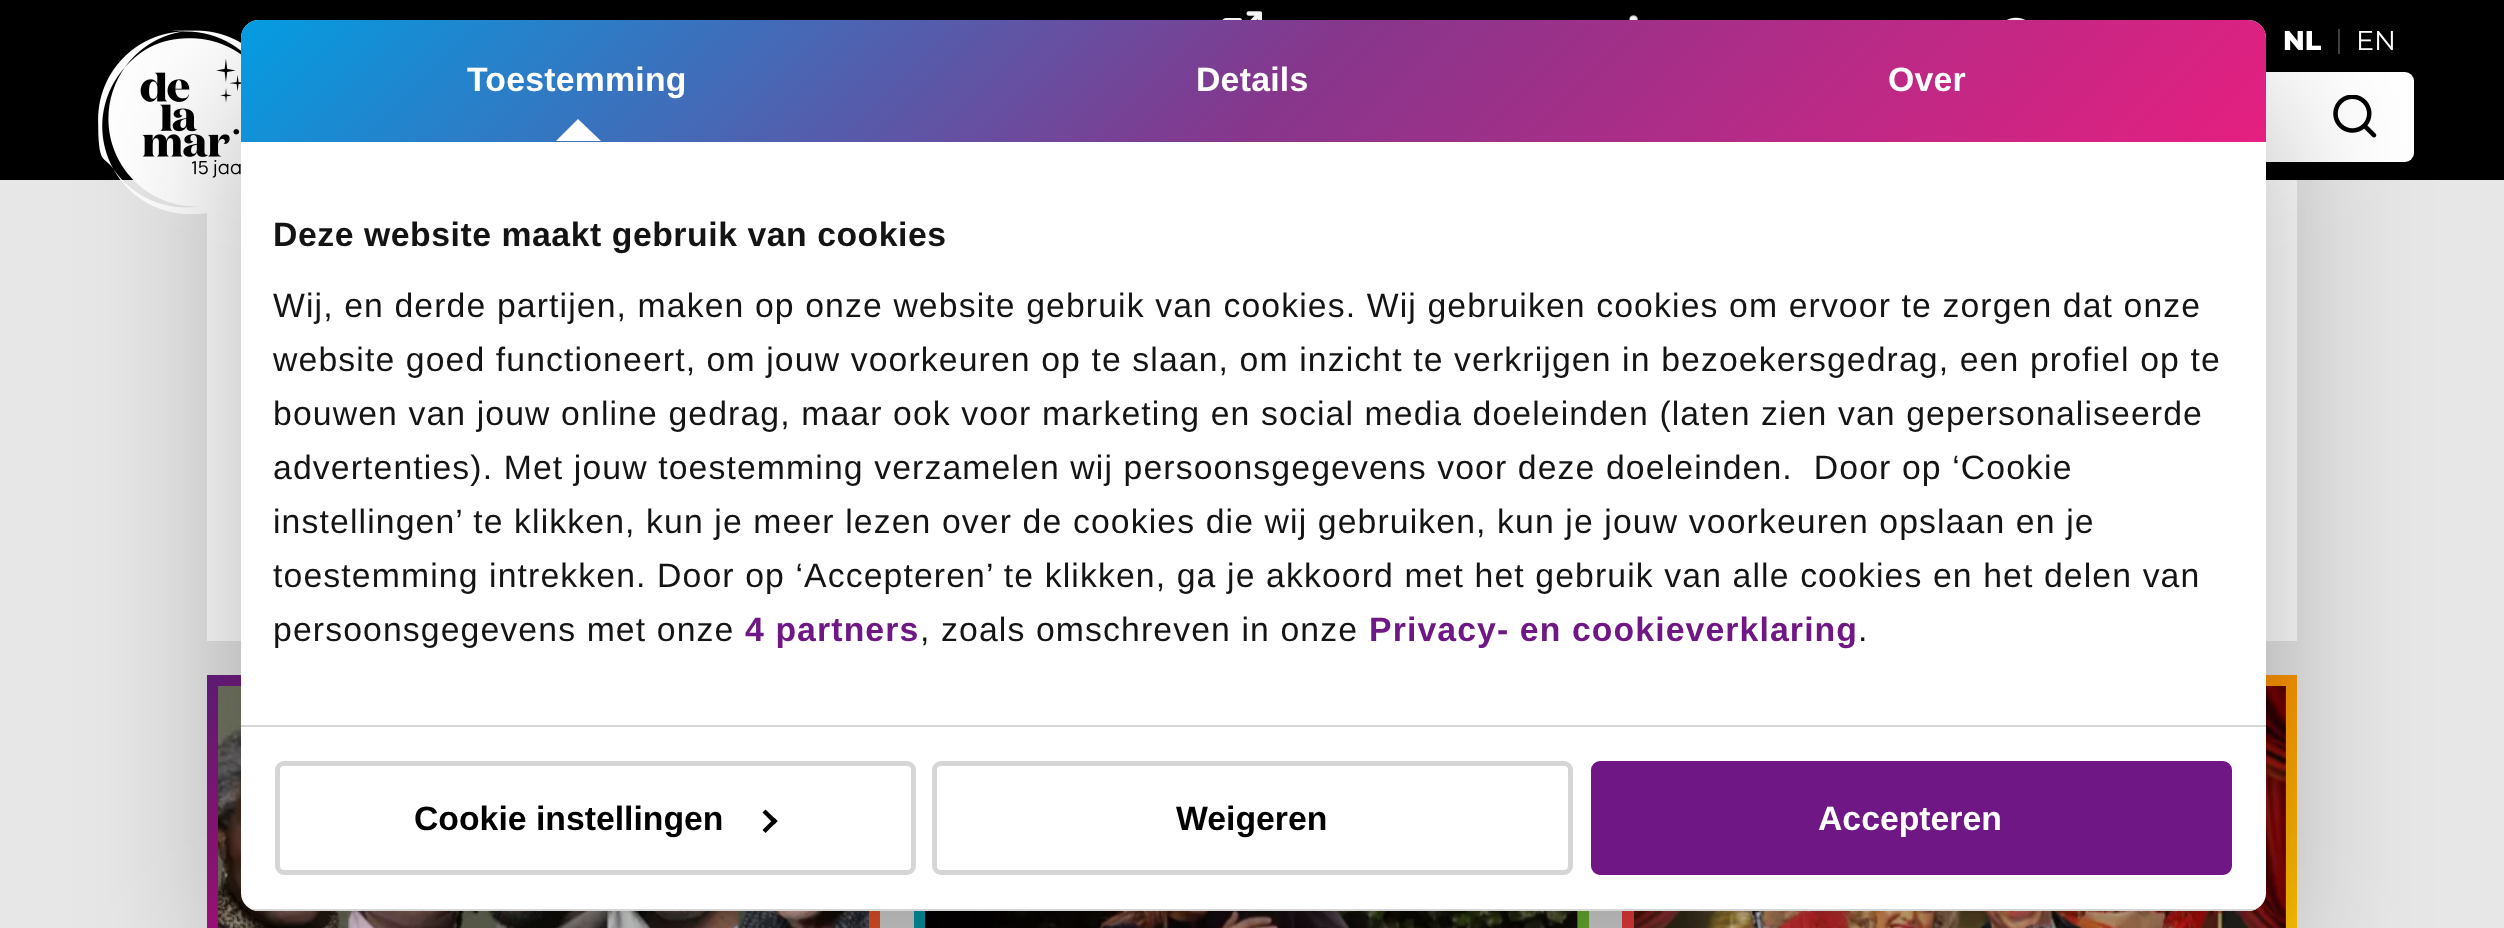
(async () => {
  const canvas = document.querySelector("canvas");
  canvas.width = 2504;
  canvas.height = 928;
  const ctx = canvas.getContext("2d");
  ctx.miterLimit = 4;
  ctx.fontKerning = "normal";
  async function loadImage(src) {
    const img = new Image();
    img.src = src;
    await img.decode();
    return img;
  }
  let gradient, path;

  ctx.fillStyle = "#e7e7e7";
  ctx.fillRect(0, 0, 2504, 928);
  ctx.fillStyle = "#000000";
  ctx.fillRect(0, 0, 2504, 180);
  ctx.fillStyle = "#ffffff";
  ctx.fillRect(207, 200, 34, 441);
  ctx.drawImage(await loadImage("img/1.png"), 98, 30, 143, 185);
  ctx.drawImage(await loadImage("img/2.png"), 1222, 11, 40, 9);
  ctx.drawImage(await loadImage("img/3.png"), 1628, 15, 10, 5);
  ctx.drawImage(await loadImage("img/4.png"), 2006, 17, 20, 3);
  ctx.fillStyle = "#404040";
  ctx.fillRect(2338, 29, 2, 25);
  ctx.fillStyle = "#ffffff";
  ctx.beginPath();
  ctx.roundRect(1694, 72, 720, 90, 9);
  ctx.fill();
  ctx.drawImage(await loadImage("img/5.png"), 2333, 95, 44, 43);
  ctx.fillRect(2266, 180, 31, 461);
  gradient = ctx.createLinearGradient(815, 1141, 273, 599);
  gradient.addColorStop(0, "#ff8001");
  gradient.addColorStop(0.46, "#f80080");
  gradient.addColorStop(1, "#661f80");
  ctx.fillStyle = gradient;
  ctx.fillRect(207, 675, 673, 253);
  ctx.drawImage(await loadImage("img/6.png"), 218, 686, 651, 242);
  gradient = ctx.createLinearGradient(1521, 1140, 982, 600);
  gradient.addColorStop(0, "#a2c617");
  gradient.addColorStop(0.49, "#00a97d");
  gradient.addColorStop(1, "#009fe3");
  ctx.fillStyle = gradient;
  ctx.fillRect(914, 911, 675, 17);
  ctx.drawImage(await loadImage("img/7.png"), 925, 911, 653, 17);
  gradient = ctx.createLinearGradient(2237, 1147, 1675, 585);
  gradient.addColorStop(0, "#ffe000");
  gradient.addColorStop(0.49, "#ff8001");
  gradient.addColorStop(1, "#f80080");
  ctx.fillStyle = gradient;
  ctx.fillRect(1622, 675, 675, 253);
  ctx.drawImage(await loadImage("img/8.png"), 1634, 686, 652, 242);
  ctx.fillStyle = "rgba(0, 0, 0, 0.3)";
  ctx.filter = "blur(76.5px)";
  ctx.beginPath();
  ctx.roundRect(241, 92, 2025, 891, 18);
  ctx.fill();
  ctx.filter = "none";
  ctx.fillStyle = "#ffffff";
  ctx.beginPath();
  ctx.roundRect(241, 20, 2025, 891, 18);
  ctx.fill();
  gradient = ctx.createLinearGradient(1799, 626, 703, -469);
  gradient.addColorStop(0, "#e71f80");
  gradient.addColorStop(0.48, "#86368c");
  gradient.addColorStop(1, "#009fe3");
  ctx.fillStyle = gradient;
  ctx.beginPath();
  ctx.roundRect(241, 20, 2025, 122, [18, 18, 0, 0]);
  ctx.fill();
  ctx.fillStyle = "#ffffff";
  path = new Path2D("M601 141H556L578 119Z");
  ctx.fill(path);
  ctx.fillStyle = "#d6d6d6";
  ctx.fillRect(241, 725, 2025, 2);
  ctx.save();
  ctx.beginPath();
  ctx.roundRect(241, 20, 2025, 891, 18);
  ctx.clip();
  ctx.fillRect(251, 909, 2005, 2);
  ctx.restore();
  ctx.beginPath();
  ctx.roundRect(277.5, 763.5, 636, 109, 6.5);
  ctx.strokeStyle = "#d6d6d6";
  ctx.lineWidth = 5;
  ctx.stroke();
  ctx.fillStyle = "#000000";
  path = new Path2D("M765.5 809.5L777.5 821L774.5 824.5L762.5 812.5Z");
  ctx.fill(path);
  path = new Path2D("M774.5 818L777.5 821L765.5 833L762.5 830Z");
  ctx.fill(path);
  ctx.beginPath();
  ctx.roundRect(934.5, 763.5, 636, 109, 6.5);
  ctx.stroke();
  ctx.fillStyle = "#6f1785";
  ctx.beginPath();
  ctx.roundRect(1593.5, 763.5, 636, 109, 6.5);
  ctx.fill();
  ctx.strokeStyle = "#6f1785";
  ctx.stroke();
  ctx.font = "800 27px Montserrat";
  ctx.fillStyle = "#ffffff";
  ctx.fillText("NL", 2283, 50);
  ctx.font = "27px Montserrat";
  ctx.fillText("EN", 2356, 50);
  ctx.letterSpacing = "0.25px";
  ctx.font = "bold 33.75px Liberation Sans";
  for (const [text, x, y] of [
    ["Toestemming", 467, 91],
    ["Details", 1196, 91],
    ["Over", 1888, 91],
  ]) {
    ctx.fillText(text, x, y);
  }
  ctx.letterSpacing = "0.55px";
  ctx.fillStyle = "#141414";
  ctx.fillText("Deze website maakt gebruik van cookies", 273, 246);
  ctx.letterSpacing = "1.12px";
  ctx.font = "33.75px Liberation Sans";
  for (const [text, x, y] of [
    ["Wij, en derde partijen, maken op onze website gebruik van cookies. Wij gebruiken cookies om ervoor te zorgen dat onze", 273, 317],
    ["website goed functioneert, om jouw voorkeuren op te slaan, om inzicht te verkrijgen in bezoekersgedrag, een profiel op te", 273, 371],
    ["bouwen van jouw online gedrag, maar ook voor marketing en social media doeleinden (laten zien van gepersonaliseerde", 273, 425],
    ["advertenties). Met jouw toestemming verzamelen wij persoonsgegevens voor deze doeleinden.  Door op ‘Cookie", 273, 479],
    ["instellingen’ te klikken, kun je meer lezen over de cookies die wij gebruiken, kun je jouw voorkeuren opslaan en je", 273, 533],
    ["toestemming intrekken. Door op ‘Accepteren’ te klikken, ga je akkoord met het gebruik van alle cookies en het delen van", 273, 587],
    ["persoonsgegevens met onze", 273, 641],
  ]) {
    ctx.fillText(text, x, y);
  }
  ctx.font = "bold 33.75px Liberation Sans";
  ctx.fillStyle = "#6f1785";
  ctx.fillText("4 partners", 745, 641);
  ctx.font = "33.75px Liberation Sans";
  ctx.fillStyle = "#141414";
  ctx.fillText(", zoals omschreven in onze", 920, 641);
  ctx.font = "bold 33.75px Liberation Sans";
  ctx.fillStyle = "#6f1785";
  ctx.fillText("Privacy- en cookieverklaring", 1369, 641);
  ctx.font = "33.75px Liberation Sans";
  ctx.fillStyle = "#141414";
  ctx.fillText(".", 1858, 641);
  ctx.letterSpacing = "0px";
  ctx.font = "bold 33.75px Liberation Sans";
  ctx.fillStyle = "#000000";
  ctx.fillText("Cookie instellingen", 414, 830);
  ctx.fillText("Weigeren", 1176, 830);
  ctx.fillStyle = "#ffffff";
  ctx.fillText("Accepteren", 1818, 830);
})();
